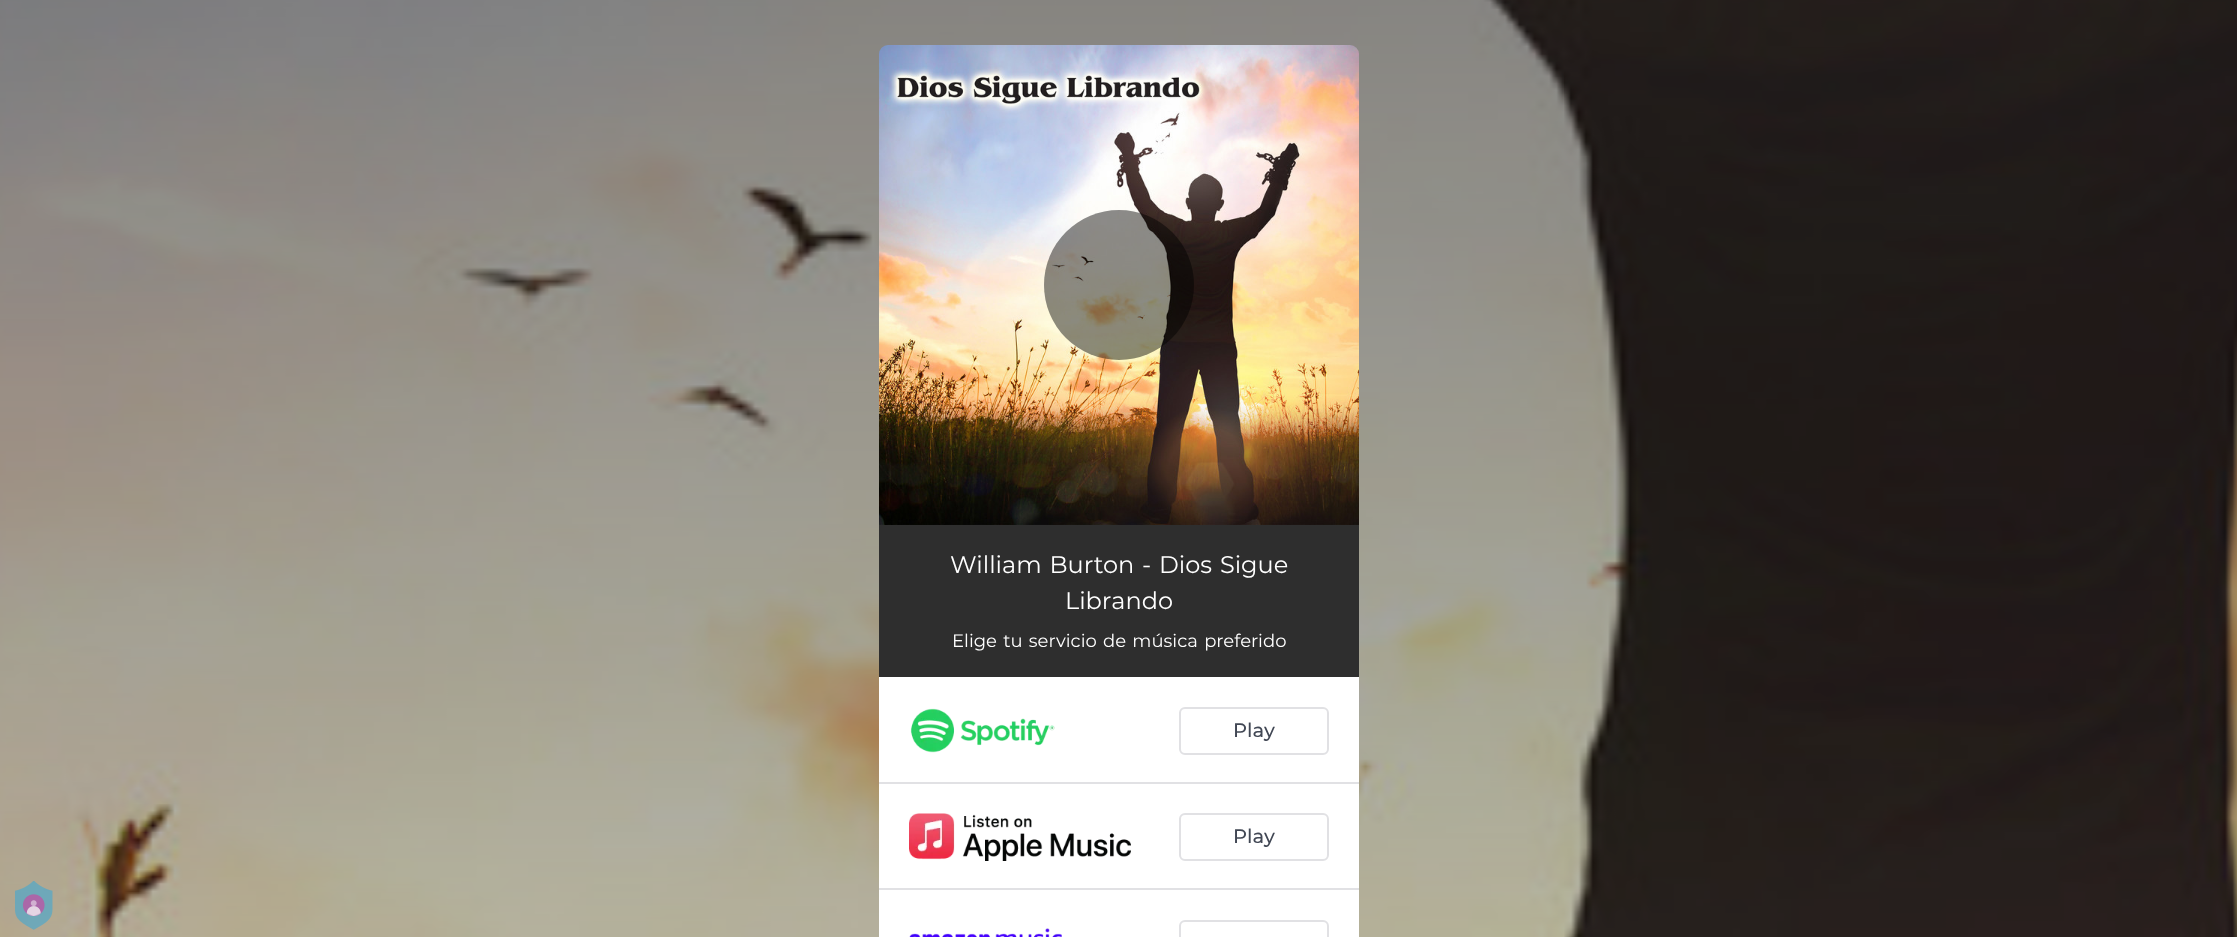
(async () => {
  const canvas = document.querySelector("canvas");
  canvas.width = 2237;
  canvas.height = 937;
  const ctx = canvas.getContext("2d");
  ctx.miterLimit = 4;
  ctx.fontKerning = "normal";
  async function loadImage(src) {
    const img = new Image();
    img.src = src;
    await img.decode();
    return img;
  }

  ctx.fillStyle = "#ffffff";
  ctx.fillRect(0, 0, 2237, 937);
  ctx.drawImage(await loadImage("img/1.png"), 0, 0, 2237, 937);
  ctx.drawImage(await loadImage("img/2.png"), 879, 45, 480, 480);
  ctx.fillStyle = "rgba(0, 0, 0, 0.45)";
  ctx.beginPath();
  ctx.arc(1119, 285, 75, 0, Math.PI * 2);
  ctx.fill();
  for (const [x, y, w, h, color] of [
    [879, 525, 480, 152, "#2e2e2e"],
    [879, 677, 480, 260, "#ffffff"],
    [879, 782, 480, 2, "#e1e1e4"],
  ]) {
    ctx.fillStyle = color;
    ctx.fillRect(x, y, w, h);
  }
  ctx.drawImage(await loadImage("img/3.png"), 910, 708, 145, 45);
  ctx.beginPath();
  ctx.roundRect(1180, 708, 148, 46, 5);
  ctx.strokeStyle = "#e1e1e4";
  ctx.lineWidth = 2;
  ctx.stroke();
  ctx.fillRect(879, 888, 480, 2);
  ctx.drawImage(await loadImage("img/4.png"), 909, 813, 222, 48);
  ctx.beginPath();
  ctx.roundRect(1180, 814, 148, 46, 5);
  ctx.stroke();
  ctx.drawImage(await loadImage("img/5.png"), 909, 928, 153, 9);
  ctx.beginPath();
  ctx.roundRect(1180, 921, 148, 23, 5);
  ctx.stroke();
  ctx.drawImage(await loadImage("img/6.png"), 15, 881, 38, 49);
  ctx.wordSpacing = "1.5px";
  ctx.font = "24px Montserrat";
  ctx.fillStyle = "#ffffff";
  ctx.fillText("William Burton - Dios Sigue", 950, 573);
  ctx.wordSpacing = "0px";
  ctx.fillText("Librando", 1065, 609);
  ctx.wordSpacing = "1.5px";
  ctx.font = "18px Montserrat";
  ctx.fillText("Elige tu servicio de música preferido", 952, 647);
  ctx.wordSpacing = "0px";
  ctx.font = "500 19.5px Montserrat";
  ctx.fillStyle = "#414754";
  ctx.fillText("Play", 1233, 737);
  ctx.fillText("Play", 1233, 843);
})();
